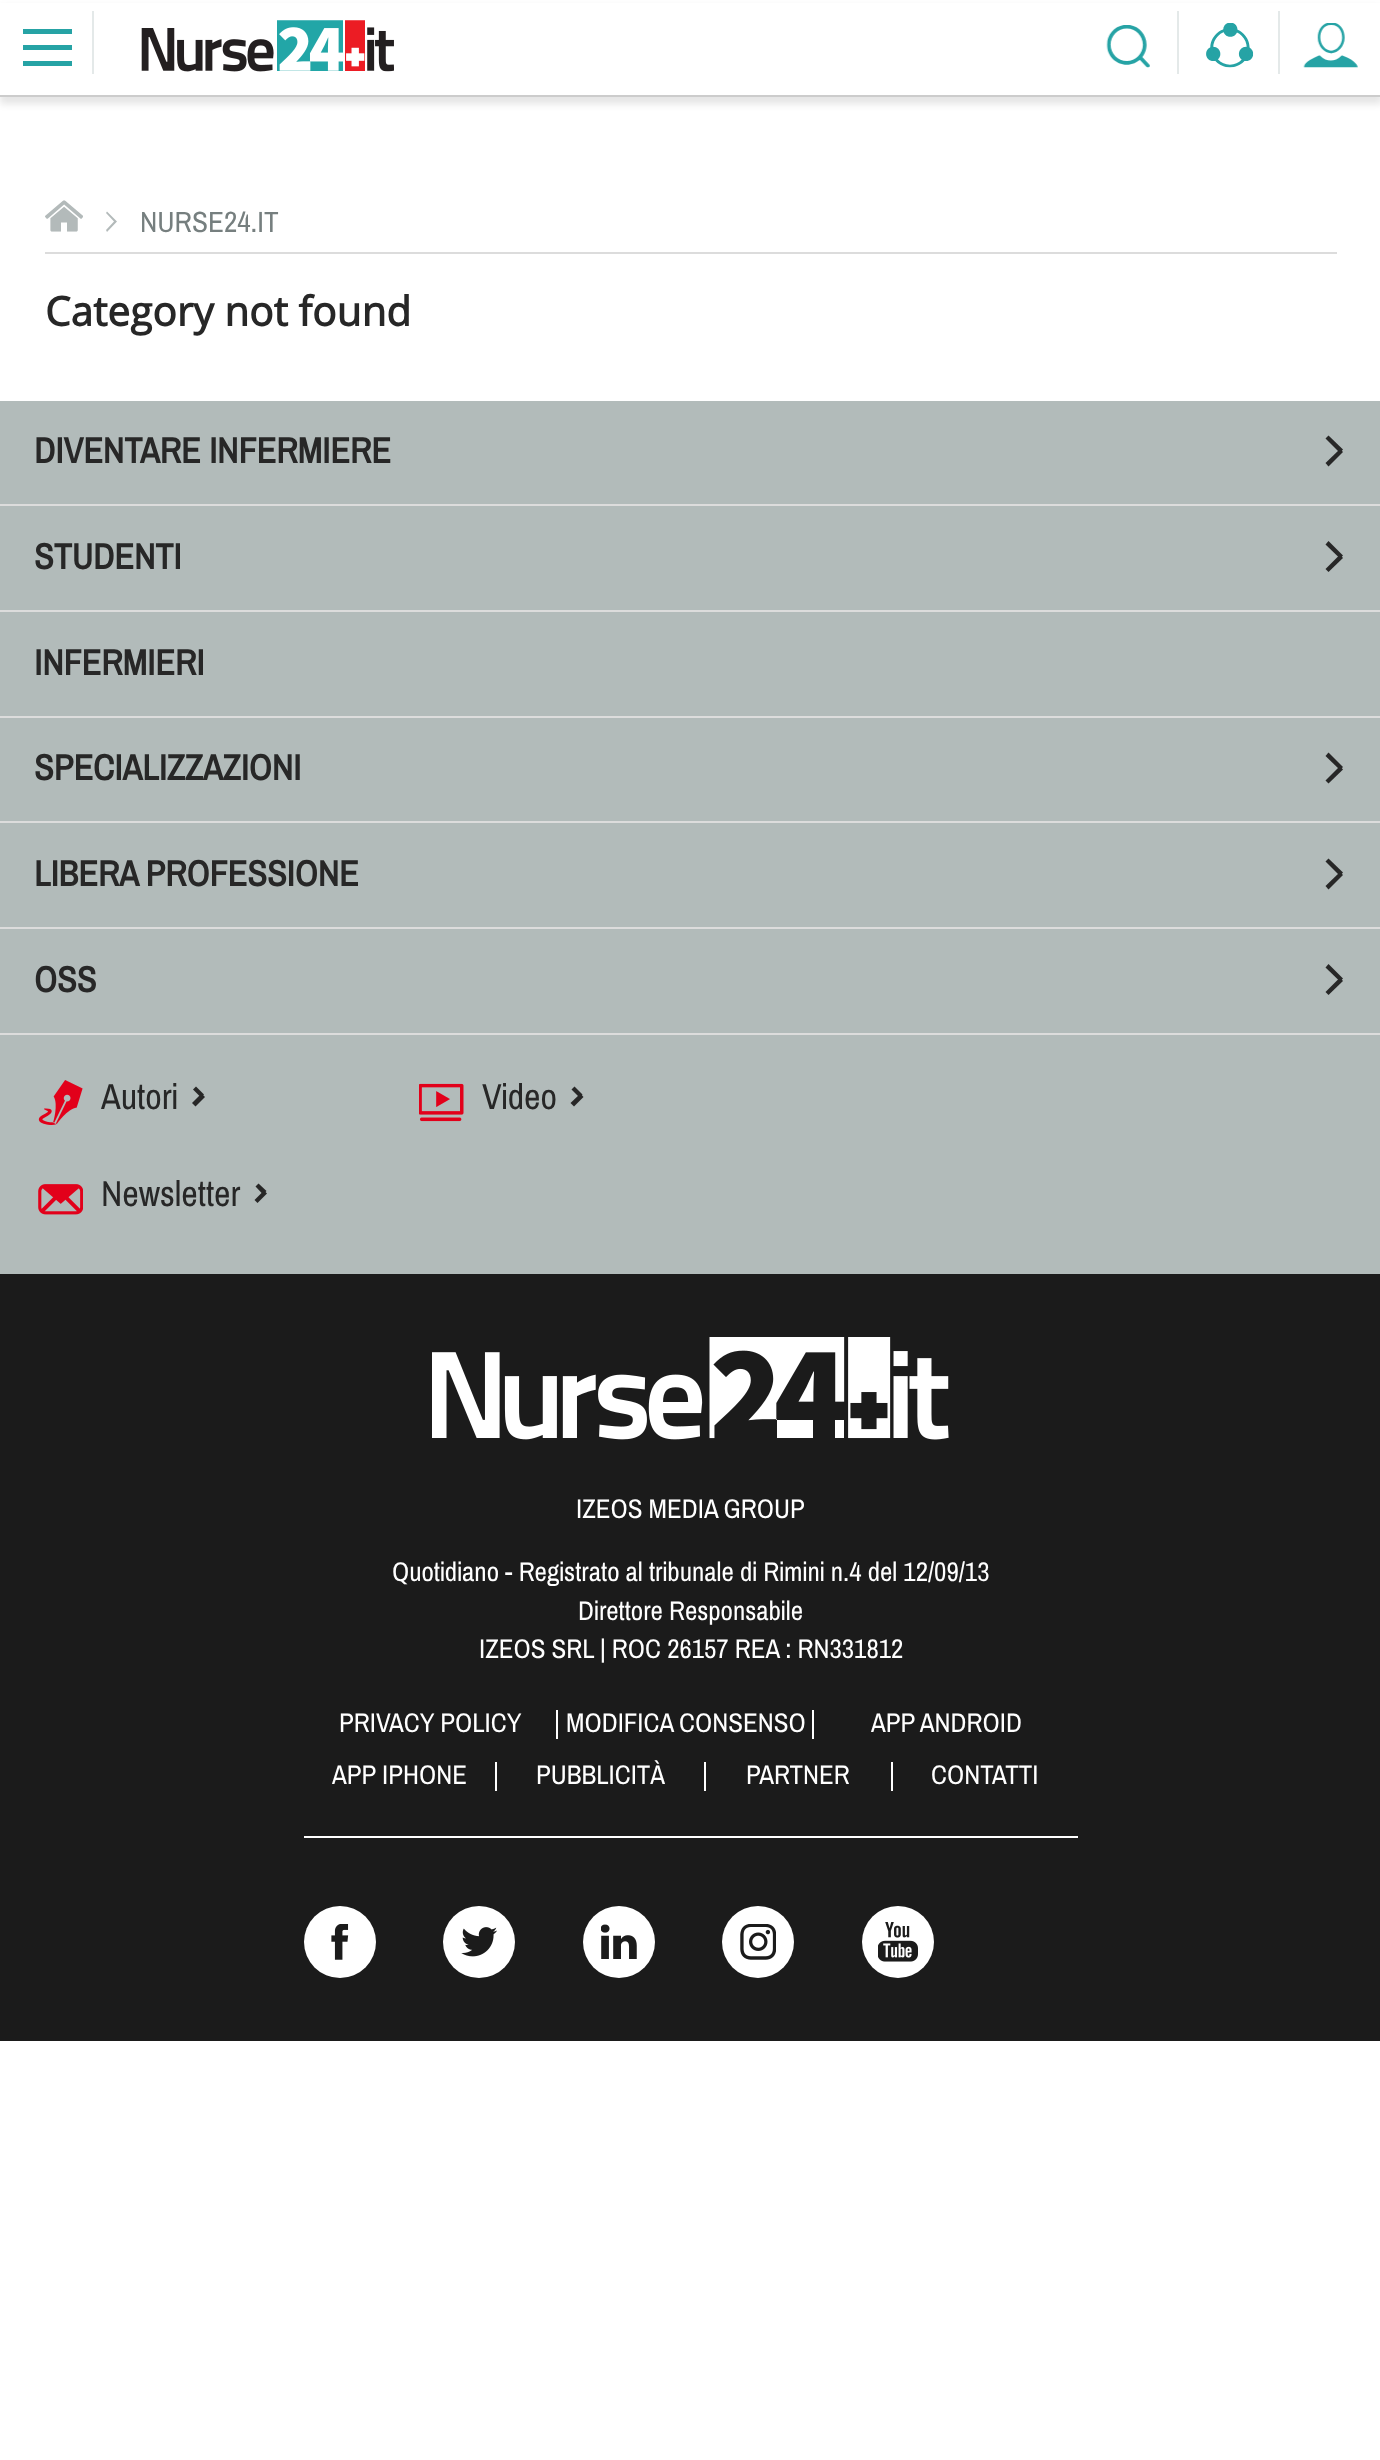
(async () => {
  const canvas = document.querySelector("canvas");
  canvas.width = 1380;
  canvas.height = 2460;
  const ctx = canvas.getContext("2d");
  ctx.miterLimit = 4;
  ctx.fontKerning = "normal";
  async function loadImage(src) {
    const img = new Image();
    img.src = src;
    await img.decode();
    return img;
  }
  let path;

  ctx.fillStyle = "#ffffff";
  ctx.fillRect(0, 0, 1380, 2460);
  ctx.fillStyle = "rgba(0, 0, 0, 0.1)";
  ctx.filter = "blur(3.5px)";
  ctx.beginPath();
  ctx.rect(0, 7, 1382, 97);
  ctx.fill();
  ctx.filter = "none";
  ctx.fillStyle = "#ffffff";
  ctx.fillRect(0, 3, 1380, 92);
  ctx.fillStyle = "#cccccc";
  ctx.fillRect(0, 95, 1380, 2);
  ctx.drawImage(await loadImage("img/1.png"), 141, 20, 253, 52);
  ctx.drawImage(await loadImage("img/2.png"), 1106, 25, 44, 43);
  ctx.fillStyle = "#e4e9e9";
  ctx.fillRect(1177, 11, 2, 63);
  ctx.drawImage(await loadImage("img/3.png"), 1206, 23, 48, 45);
  ctx.fillRect(1278, 11, 2, 63);
  ctx.drawImage(await loadImage("img/4.png"), 1303, 23, 55, 45);
  for (const [x, y, w, h, color] of [
    [23, 45, 49, 5, "#26a3a5"],
    [23, 29, 49, 5, "#26a3a5"],
    [23, 61, 49, 5, "#26a3a5"],
    [92, 11, 2, 63, "#e4e9e9"],
    [45, 252, 1292, 2, "#dcdcdc"],
  ]) {
    ctx.fillStyle = color;
    ctx.fillRect(x, y, w, h);
  }
  ctx.drawImage(await loadImage("img/5.png"), 45, 200, 38, 32);
  ctx.fillStyle = "#b3baba";
  path = new Path2D("M107 232L106 230L114 221.5L106 213L107 211.5L117 221.5Z");
  ctx.fill(path);
  ctx.fillStyle = "#b2bbba";
  ctx.fillRect(0, 401, 1380, 873);
  ctx.fillStyle = "#dcdcdc";
  ctx.fillRect(0, 504, 1380, 2);
  ctx.fillStyle = "#272727";
  path = new Path2D("M1340 449L1343 452L1328.5 466.5L1325.5 463Z");
  ctx.fill(path);
  path = new Path2D("M1325.5 438.5L1328.5 435.5L1343 449.5L1340 453Z");
  ctx.fill(path);
  ctx.fillStyle = "#dcdcdc";
  ctx.fillRect(0, 610, 1380, 2);
  ctx.fillStyle = "#272727";
  path = new Path2D("M1340 554.5L1343 558L1328.5 572L1325.5 569Z");
  ctx.fill(path);
  path = new Path2D("M1325.5 544.5L1328.5 541L1343 555.5L1340 558.5Z");
  ctx.fill(path);
  ctx.fillStyle = "#dcdcdc";
  ctx.fillRect(0, 716, 1380, 2);
  ctx.fillRect(0, 821, 1380, 2);
  ctx.fillStyle = "#272727";
  path = new Path2D("M1340 766L1343 769.5L1328.5 783.5L1325.5 780.5Z");
  ctx.fill(path);
  path = new Path2D("M1325.5 756L1328.5 752.5L1343 767L1340 770Z");
  ctx.fill(path);
  ctx.fillStyle = "#dcdcdc";
  ctx.fillRect(0, 927, 1380, 2);
  ctx.fillStyle = "#272727";
  path = new Path2D("M1340 872L1343 875L1328.5 889.5L1325.5 886Z");
  ctx.fill(path);
  path = new Path2D("M1325.5 861.5L1328.5 858.5L1343 872.5L1340 876Z");
  ctx.fill(path);
  ctx.fillStyle = "#dcdcdc";
  ctx.fillRect(0, 1033, 1380, 2);
  ctx.fillStyle = "#272727";
  path = new Path2D("M1340 977.5L1343 981L1328.5 995L1325.5 992Z");
  ctx.fill(path);
  path = new Path2D("M1325.5 967.5L1328.5 964L1343 978.5L1340 981.5Z");
  ctx.fill(path);
  ctx.drawImage(await loadImage("img/6.png"), 38, 1080, 45, 45);
  path = new Path2D("M201.5 1093.5L205 1097L195.5 1106.5L192 1103Z");
  ctx.fill(path);
  path = new Path2D("M193 1089.5L196 1086.5L204 1094.5L201 1097.5Z");
  ctx.fill(path);
  ctx.drawImage(await loadImage("img/7.png"), 419, 1083, 45, 39);
  path = new Path2D("M580.5 1093.5L583.5 1097L574 1106.5L570.5 1103Z");
  ctx.fill(path);
  path = new Path2D("M571.5 1089.5L574.5 1086.5L582.5 1094.5L579.5 1097.5Z");
  ctx.fill(path);
  ctx.drawImage(await loadImage("img/8.png"), 38, 1184, 45, 31);
  path = new Path2D("M264 1190.5L267 1193.5L257.5 1203L254.5 1200Z");
  ctx.fill(path);
  path = new Path2D("M255.5 1186.5L258.5 1183.5L266.5 1191L263 1194.5Z");
  ctx.fill(path);
  ctx.fillStyle = "#1b1b1b";
  ctx.fillRect(0, 1274, 1380, 767);
  ctx.drawImage(await loadImage("img/9.png"), 432, 1337, 517, 103);
  for (const [x, y, w, h, color] of [
    [304, 1836, 774, 2, "#ffffff"],
    [556, 1710, 2, 29, "#ffffff"],
    [812, 1710, 2, 29, "#ffffff"],
    [495, 1762, 2, 29, "#ffffff"],
    [704, 1762, 2, 29, "#ffffff"],
    [891, 1762, 2, 29, "#ffffff"],
  ]) {
    ctx.fillStyle = color;
    ctx.fillRect(x, y, w, h);
  }
  ctx.beginPath();
  ctx.arc(340, 1942, 36, 0, Math.PI * 2);
  ctx.fill();
  ctx.drawImage(await loadImage("img/10.png"), 331, 1924, 18, 36);
  ctx.beginPath();
  ctx.arc(479, 1942, 36, 0, Math.PI * 2);
  ctx.fill();
  ctx.drawImage(await loadImage("img/11.png"), 461, 1927, 36, 30);
  ctx.beginPath();
  ctx.arc(619, 1942, 36, 0, Math.PI * 2);
  ctx.fill();
  ctx.drawImage(await loadImage("img/12.png"), 601, 1924, 36, 35);
  ctx.beginPath();
  ctx.arc(758, 1942, 36, 0, Math.PI * 2);
  ctx.fill();
  ctx.drawImage(await loadImage("img/13.png"), 740, 1924, 36, 36);
  ctx.beginPath();
  ctx.arc(898, 1942, 36, 0, Math.PI * 2);
  ctx.fill();
  ctx.drawImage(await loadImage("img/14.png"), 878, 1922, 40, 40);
  ctx.font = "29.25px Archivo Narrow";
  ctx.fillStyle = "#767f7f";
  ctx.fillText("NURSE24.IT", 140, 232);
  ctx.font = "bold 40.5px Open Sans";
  ctx.fillStyle = "#272727";
  ctx.fillText("Category not found", 45, 326);
  ctx.font = "bold 36px Archivo Narrow";
  for (const [text, x, y] of [
    ["DIVENTARE INFERMIERE", 34, 463],
    ["STUDENTI", 34, 569],
    ["INFERMIERI", 34, 675],
    ["SPECIALIZZAZIONI", 34, 780],
    ["LIBERA PROFESSIONE", 34, 886],
    ["OSS", 34, 992],
  ]) {
    ctx.fillText(text, x, y);
  }
  ctx.font = "36px Archivo Narrow";
  for (const [text, x, y] of [
    ["Autori", 101, 1109],
    ["Video", 482, 1109],
    ["Newsletter", 101, 1206],
  ]) {
    ctx.fillText(text, x, y);
  }
  ctx.font = "27px Archivo Narrow";
  ctx.fillStyle = "#ffffff";
  for (const [text, x, y] of [
    ["IZEOS MEDIA GROUP", 576, 1518],
    ["Quotidiano - Registrato al tribunale di Rimini n.4 del 12/09/13", 392, 1581],
    ["Direttore Responsabile", 578, 1620],
    ["IZEOS SRL | ROC 26157 REA : RN331812", 479, 1658],
    ["PRIVACY POLICY", 339, 1732],
    ["MODIFICA CONSENSO", 566, 1732],
    ["APP ANDROID", 871, 1732],
    ["APP IPHONE", 332, 1784],
    ["PUBBLICITÀ", 536, 1784],
    ["PARTNER", 746, 1784],
    ["CONTATTI", 931, 1784],
  ]) {
    ctx.fillText(text, x, y);
  }
})();
